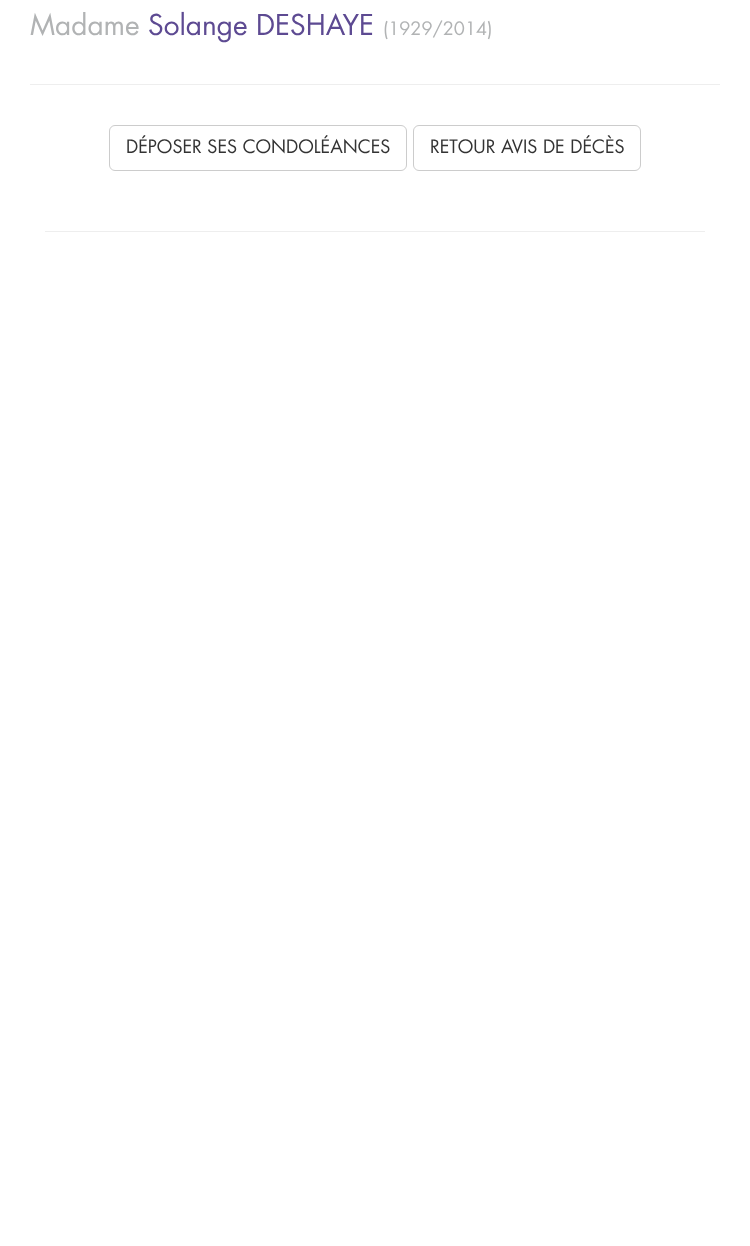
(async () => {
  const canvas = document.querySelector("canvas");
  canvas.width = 750;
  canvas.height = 1246;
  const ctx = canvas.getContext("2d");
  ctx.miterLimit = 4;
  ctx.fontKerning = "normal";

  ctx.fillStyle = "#ffffff";
  ctx.fillRect(0, 0, 750, 1246);
  ctx.fillStyle = "#eeeeee";
  ctx.fillRect(30, 84, 690, 1);
  ctx.beginPath();
  ctx.roundRect(109.5, 125.5, 297, 45, 5.5);
  ctx.strokeStyle = "#cccccc";
  ctx.stroke();
  ctx.beginPath();
  ctx.roundRect(413.5, 125.5, 227, 45, 5.5);
  ctx.stroke();
  ctx.fillRect(45, 231, 660, 1);
  ctx.font = "28px Futura";
  ctx.fillStyle = "#b1b3b4";
  ctx.fillText("Madame", 30, 35);
  ctx.fillStyle = "#5d4a92";
  ctx.fillText("Solange DESHAYE", 148, 35);
  ctx.font = "18px Futura";
  ctx.fillStyle = "#b1b3b4";
  ctx.fillText("(1929/2014)", 383, 35);
  ctx.fillStyle = "#333333";
  ctx.fillText("DÉPOSER SES CONDOLÉANCES", 126, 153);
  ctx.fillText("RETOUR AVIS DE DÉCÈS", 430, 153);
})();
